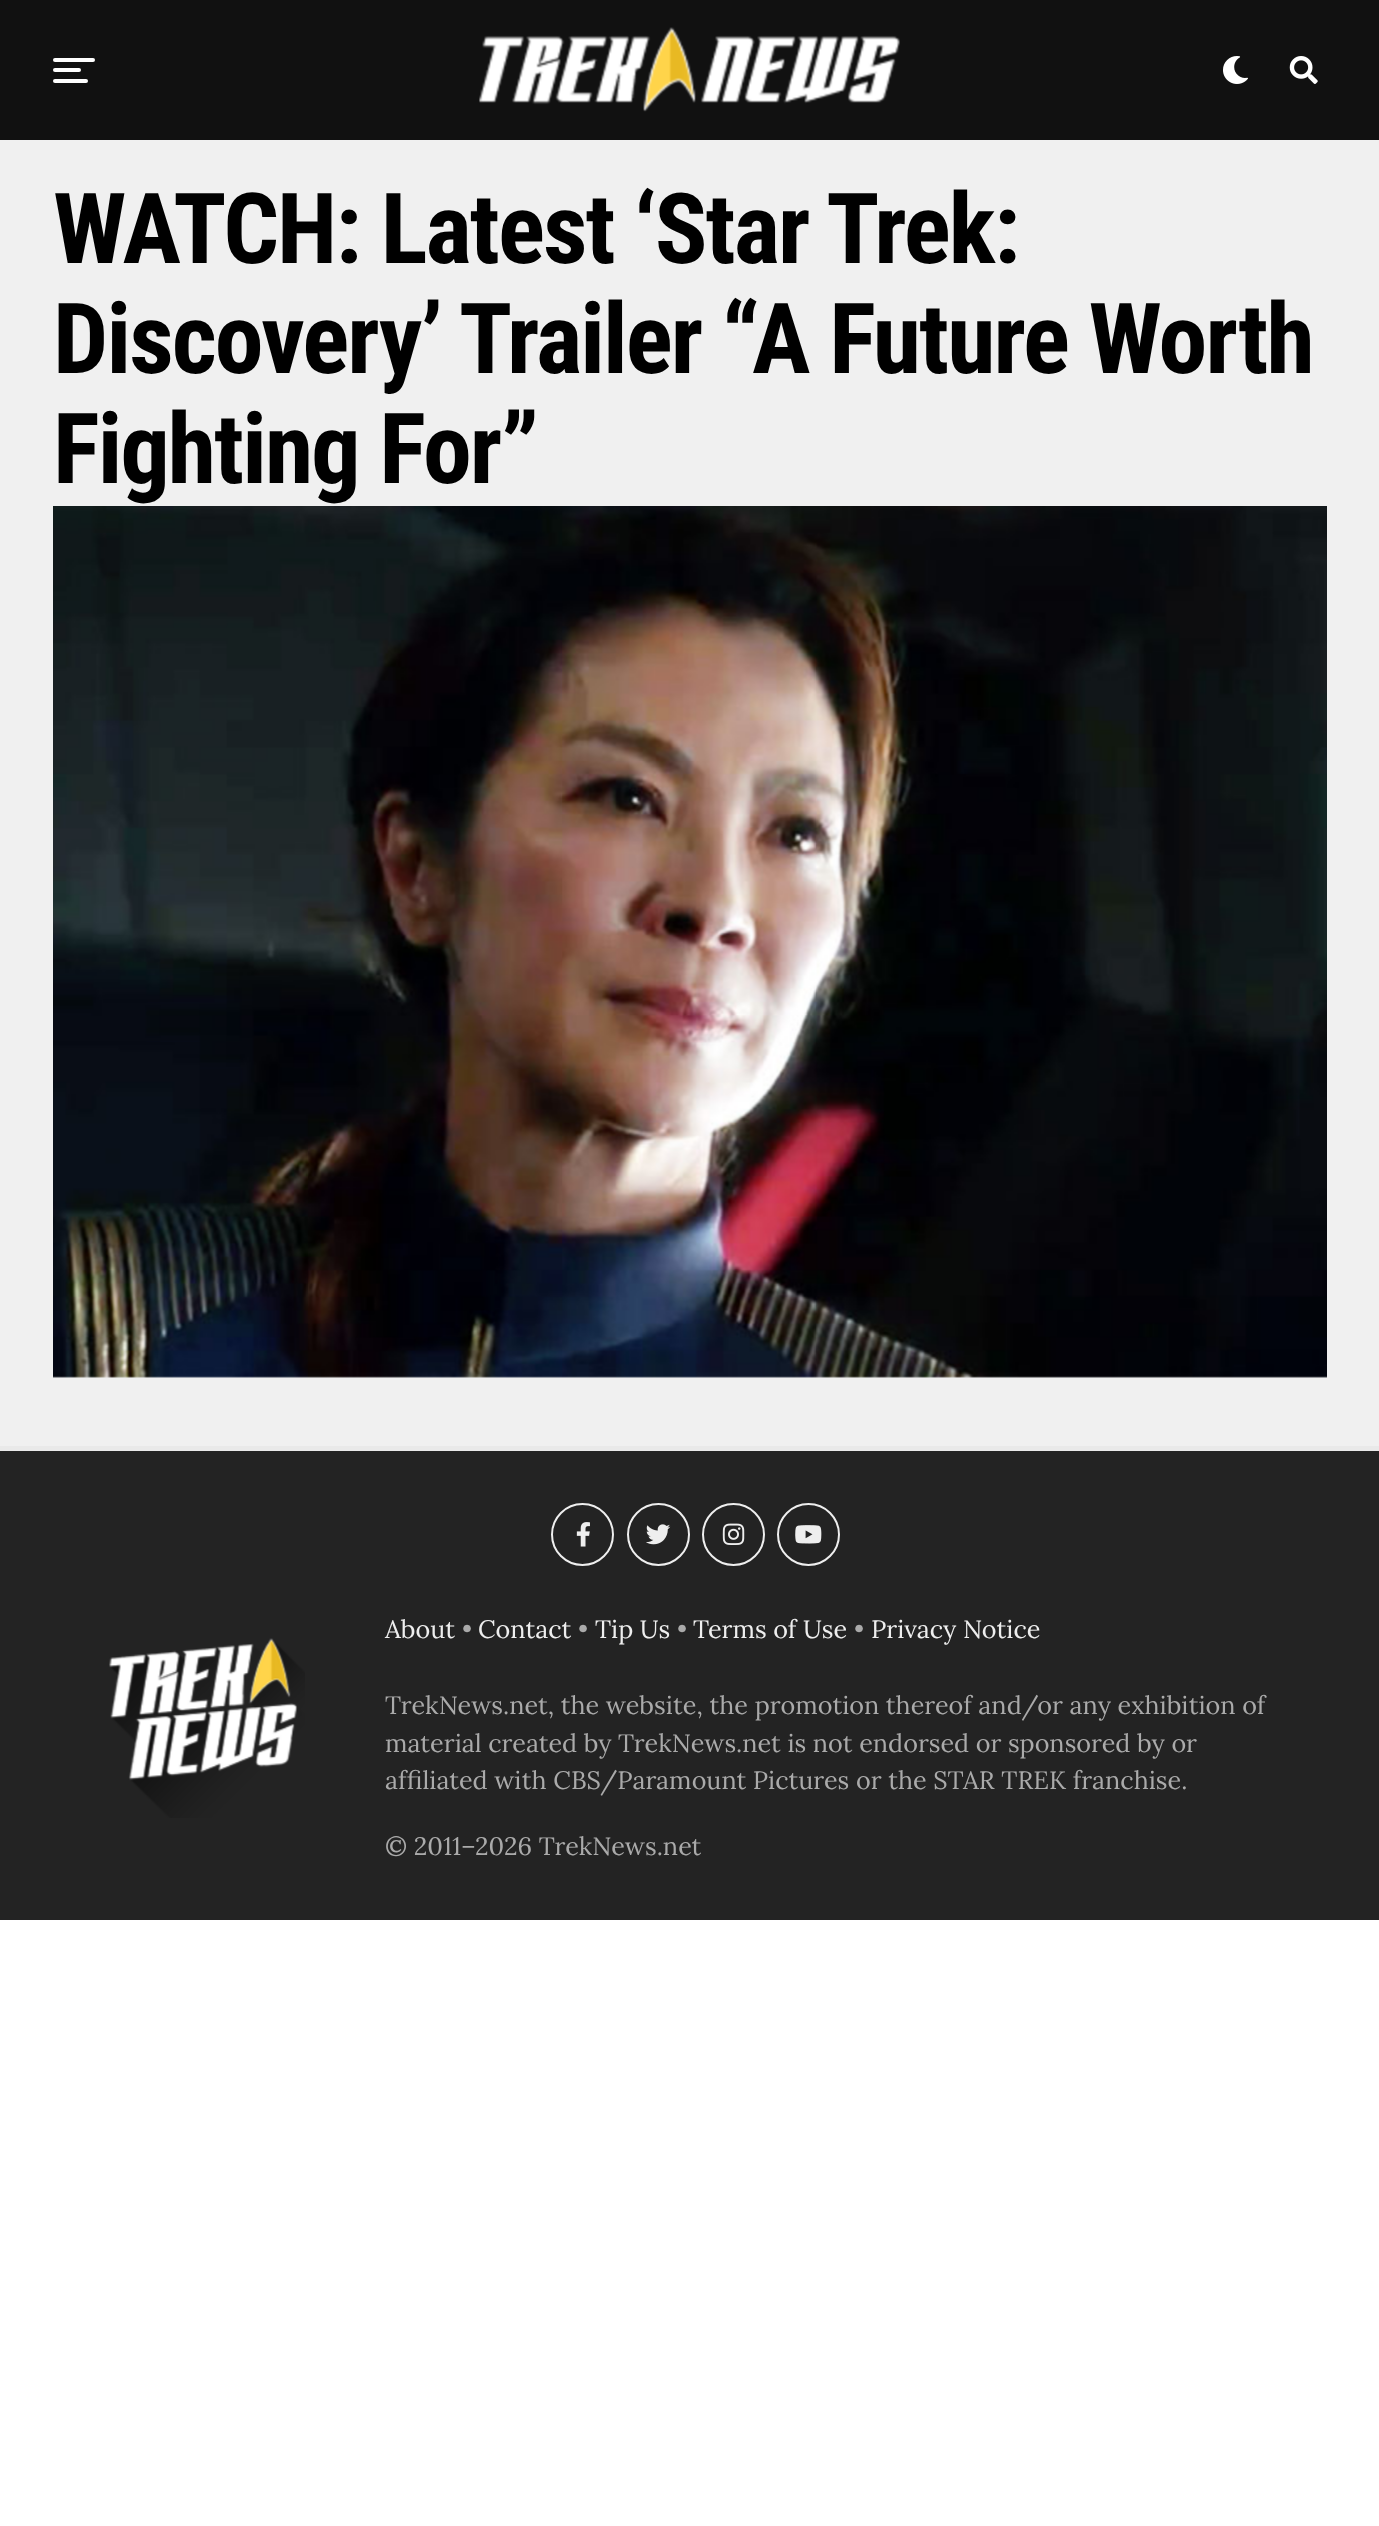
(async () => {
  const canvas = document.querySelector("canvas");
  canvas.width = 1379;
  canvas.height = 2526;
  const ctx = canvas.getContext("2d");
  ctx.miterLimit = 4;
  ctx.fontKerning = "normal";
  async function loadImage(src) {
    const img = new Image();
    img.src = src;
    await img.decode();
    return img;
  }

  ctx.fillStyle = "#ffffff";
  ctx.fillRect(0, 0, 1379, 2526);
  ctx.fillStyle = "#111111";
  ctx.fillRect(0, 0, 1379, 140);
  ctx.fillStyle = "#ffffff";
  ctx.beginPath();
  ctx.roundRect(53, 58, 42, 4, 2);
  ctx.fill();
  ctx.beginPath();
  ctx.roundRect(53, 68, 28, 4, 2);
  ctx.fill();
  ctx.beginPath();
  ctx.roundRect(53, 79, 35, 4, 2);
  ctx.fill();
  ctx.drawImage(await loadImage("img/1.png"), 479, 27, 421, 85);
  ctx.drawImage(await loadImage("img/2.png"), 1223, 56, 25, 28);
  ctx.drawImage(await loadImage("img/3.png"), 1289, 56, 29, 28);
  ctx.fillStyle = "#f0f0f0";
  ctx.fillRect(0, 140, 1379, 1306);
  ctx.drawImage(await loadImage("img/4.png"), 53, 506, 1274, 872);
  ctx.fillStyle = "#232323";
  ctx.fillRect(0, 1451, 1379, 469);
  ctx.fillStyle = "#e9e9e9";
  ctx.fillRect(0, 1446, 1379, 5);
  ctx.beginPath();
  ctx.arc(582.5, 1534.5, 30.5, 0, Math.PI * 2);
  ctx.strokeStyle = "#eeeeee";
  ctx.lineWidth = 2;
  ctx.stroke();
  ctx.drawImage(await loadImage("img/5.png"), 576, 1522, 14, 25);
  ctx.beginPath();
  ctx.arc(658.5, 1534.5, 30.5, 0, Math.PI * 2);
  ctx.stroke();
  ctx.drawImage(await loadImage("img/6.png"), 646, 1524, 25, 21);
  ctx.beginPath();
  ctx.arc(733.5, 1534.5, 30.5, 0, Math.PI * 2);
  ctx.stroke();
  ctx.drawImage(await loadImage("img/7.png"), 722, 1523, 23, 22);
  ctx.beginPath();
  ctx.arc(808.5, 1534.5, 30.5, 0, Math.PI * 2);
  ctx.stroke();
  ctx.drawImage(await loadImage("img/8.png"), 795, 1525, 27, 19);
  ctx.drawImage(await loadImage("img/9.png"), 109, 1638, 196, 180);
  ctx.letterSpacing = "-1.95px";
  ctx.font = "bold 98px Roboto Condensed";
  ctx.fillStyle = "#000000";
  for (const [text, x, y] of [
    ["WATCH: Latest ‘Star Trek:", 53, 263],
    ["Discovery’ Trailer “A Future Worth", 53, 373],
    ["Fighting For”", 53, 483],
  ]) {
    ctx.fillText(text, x, y);
  }
  ctx.letterSpacing = "0px";
  ctx.font = "25.2px Lora";
  ctx.fillStyle = "#eeeeee";
  ctx.fillText("About", 385, 1638);
  ctx.fillStyle = "#aaaaaa";
  ctx.fillText("•", 462, 1638);
  ctx.fillStyle = "#eeeeee";
  ctx.fillText("Contact", 478, 1638);
  ctx.fillStyle = "#aaaaaa";
  ctx.fillText("•", 578, 1638);
  ctx.fillStyle = "#eeeeee";
  ctx.fillText("Tip Us", 595, 1638);
  ctx.fillStyle = "#aaaaaa";
  ctx.fillText("•", 677, 1638);
  ctx.fillStyle = "#eeeeee";
  ctx.fillText("Terms of Use", 693, 1638);
  ctx.fillStyle = "#aaaaaa";
  ctx.fillText("•", 854, 1638);
  ctx.fillStyle = "#eeeeee";
  ctx.fillText("Privacy Notice", 871, 1638);
  ctx.fillStyle = "#aaaaaa";
  for (const [text, x, y] of [
    ["TrekNews.net, the website, the promotion thereof and/or any exhibition of", 385, 1714],
    ["material created by TrekNews.net is not endorsed or sponsored by or", 385, 1752],
    ["affiliated with CBS/Paramount Pictures or the STAR TREK franchise.", 385, 1789],
    ["© 2011–2026 TrekNews.net", 385, 1855],
  ]) {
    ctx.fillText(text, x, y);
  }
})();
